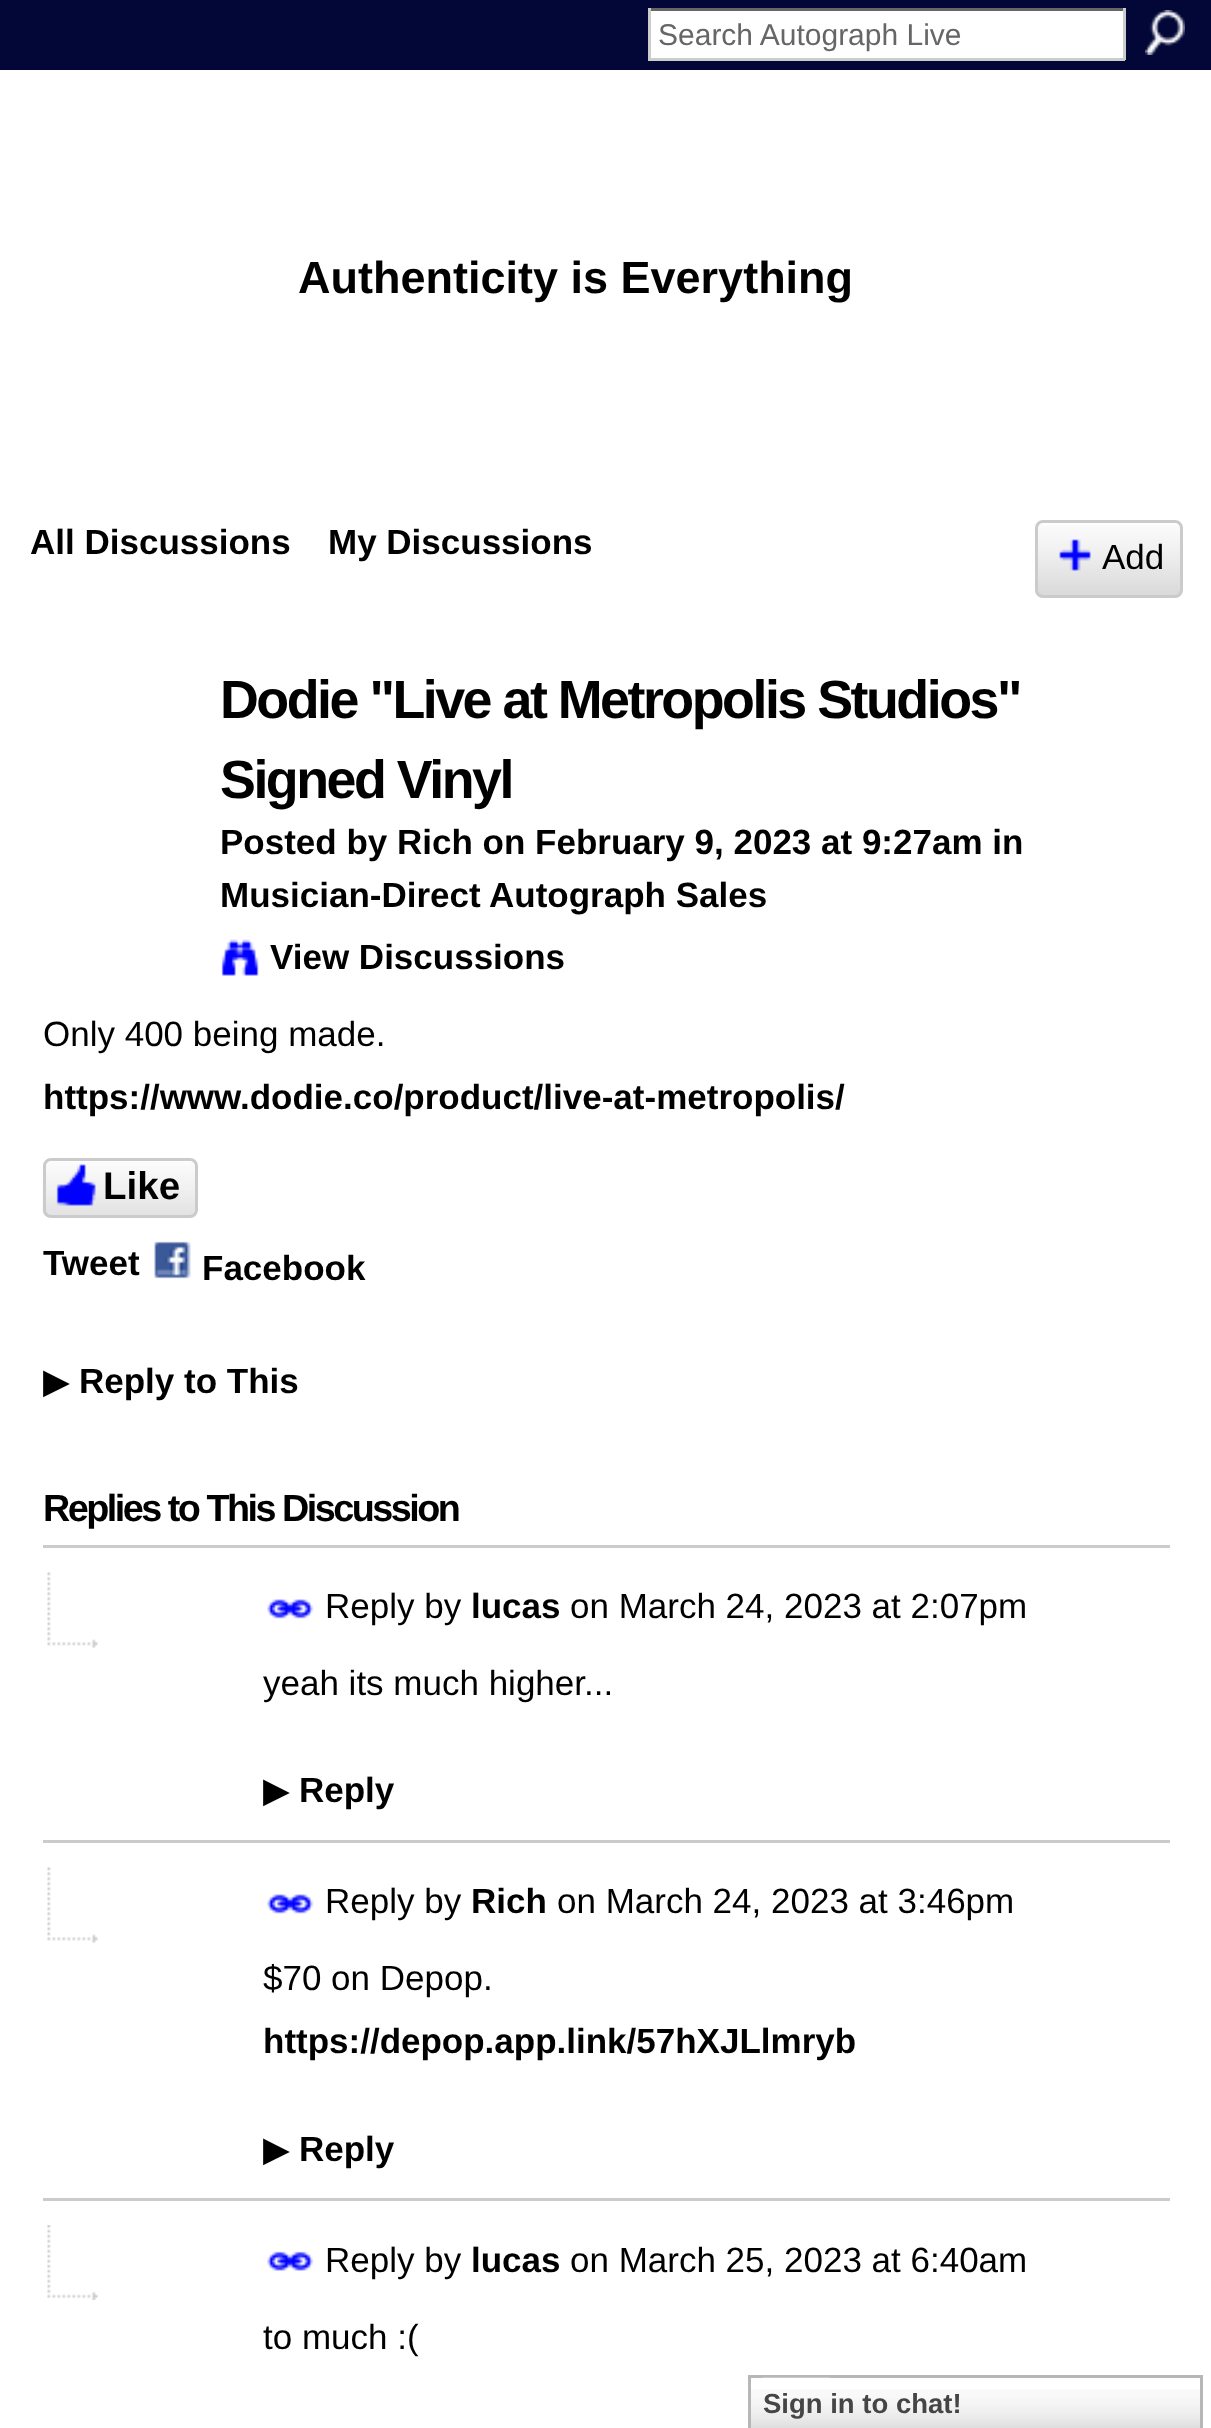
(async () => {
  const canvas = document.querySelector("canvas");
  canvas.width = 1211;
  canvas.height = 2428;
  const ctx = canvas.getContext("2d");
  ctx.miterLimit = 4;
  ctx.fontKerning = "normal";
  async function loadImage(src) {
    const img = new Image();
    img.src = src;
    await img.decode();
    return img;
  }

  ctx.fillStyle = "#ffffff";
  ctx.fillRect(0, 0, 1211, 2428);
  for (const [x, y, w, h, color] of [
    [0, 0, 1211, 70, "#030738"],
    [651, 11, 472, 47, "#ffffff"],
    [648, 8, 477, 3, "#666666"],
    [1123, 8, 3, 52, "#cccccc"],
    [648, 58, 477, 3, "#cccccc"],
    [648, 8, 3, 52, "#cccccc"],
  ]) {
    ctx.fillStyle = color;
    ctx.fillRect(x, y, w, h);
  }
  ctx.drawImage(await loadImage("img/1.png"), 1145, 10, 40, 45);
  ctx.drawImage(await loadImage("img/2.png"), 1035, 525, 148, 73);
  ctx.beginPath();
  ctx.roundRect(1036.5, 521.5, 145, 75, 6.5);
  ctx.strokeStyle = "#cbcbcb";
  ctx.lineWidth = 3;
  ctx.stroke();
  ctx.drawImage(await loadImage("img/3.png"), 1059, 539, 32, 32);
  ctx.drawImage(await loadImage("img/4.png"), 221, 939, 38, 37);
  ctx.drawImage(await loadImage("img/5.png"), 42, 1162, 156, 56);
  ctx.beginPath();
  ctx.roundRect(44.5, 1159.5, 152, 57, 6.5);
  ctx.stroke();
  ctx.drawImage(await loadImage("img/6.png"), 56, 1164, 40, 42);
  ctx.drawImage(await loadImage("img/7.png"), 154, 1241, 37, 38);
  ctx.drawImage(await loadImage("img/8.png"), 47, 1572, 51, 76);
  ctx.fillStyle = "#cbcbcb";
  ctx.fillRect(43, 1545, 1127, 3);
  ctx.drawImage(await loadImage("img/9.png"), 267, 1599, 47, 20);
  ctx.drawImage(await loadImage("img/8.png"), 47, 1867, 51, 76);
  ctx.fillRect(43, 1840, 1127, 3);
  ctx.drawImage(await loadImage("img/9.png"), 267, 1894, 47, 20);
  ctx.drawImage(await loadImage("img/10.png"), 47, 2225, 51, 75);
  ctx.fillRect(43, 2198, 1127, 3);
  ctx.drawImage(await loadImage("img/11.png"), 267, 2251, 47, 20);
  ctx.drawImage(await loadImage("img/12.png"), 751, 2389, 449, 39);
  ctx.strokeStyle = "#b7b7b7";
  ctx.strokeRect(749.5, 2376.5, 452, 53);
  ctx.drawImage(await loadImage("img/13.png"), 762, 2377, 68, 1);
  ctx.font = "30px Liberation Sans";
  ctx.fillStyle = "#666666";
  ctx.fillText("Search Autograph Live", 658, 45);
  ctx.font = "bold 45px Liberation Sans";
  ctx.fillStyle = "#000000";
  ctx.fillText("Authenticity is Everything", 298, 293);
  ctx.font = "bold 35px Liberation Sans";
  ctx.fillText("All Discussions", 30, 554);
  ctx.fillText("My Discussions", 328, 554);
  ctx.font = "35px Liberation Sans";
  ctx.fillText("Add", 1102, 569);
  ctx.letterSpacing = "-2.5px";
  ctx.font = "bold 53.8px Liberation Sans";
  ctx.fillText("Dodie \"Live at Metropolis Studios\"", 220, 718);
  ctx.fillText("Signed Vinyl", 220, 798);
  ctx.letterSpacing = "0px";
  ctx.font = "bold 35px Liberation Sans";
  for (const [text, x, y] of [
    ["Posted by Rich on February 9, 2023 at 9:27am in", 220, 854],
    ["Musician-Direct Autograph Sales", 220, 907],
    ["View Discussions", 270, 969],
  ]) {
    ctx.fillText(text, x, y);
  }
  ctx.font = "35px Liberation Sans";
  ctx.fillText("Only 400 being made.", 43, 1046);
  ctx.font = "bold 35px Liberation Sans";
  ctx.fillText("https://www.dodie.co/product/live-at-metropolis/", 43, 1109);
  ctx.font = "bold 38.5px Liberation Sans";
  ctx.fillText("Like", 103, 1199);
  ctx.font = "bold 35px Liberation Sans";
  ctx.fillText("Tweet", 43, 1275);
  ctx.fillText("Facebook", 202, 1280);
  ctx.font = "35px DejaVu Sans";
  ctx.fillText("▶", 43, 1393);
  ctx.font = "bold 35px Liberation Sans";
  ctx.fillText("Reply to This", 79, 1393);
  ctx.letterSpacing = "-2.5px";
  ctx.font = "bold 37.75px Liberation Sans";
  ctx.fillText("Replies to This Discussion", 43, 1521);
  ctx.letterSpacing = "0px";
  ctx.font = "35px Liberation Sans";
  ctx.fillText("Reply by", 325, 1618);
  ctx.font = "bold 35px Liberation Sans";
  ctx.fillText("lucas", 471, 1618);
  ctx.font = "35px Liberation Sans";
  ctx.fillText("on March 24, 2023 at 2:07pm", 570, 1618);
  ctx.fillText("yeah its much higher...", 263, 1695);
  ctx.font = "35px DejaVu Sans";
  ctx.fillText("▶", 263, 1802);
  ctx.font = "bold 35px Liberation Sans";
  ctx.fillText("Reply", 299, 1802);
  ctx.font = "35px Liberation Sans";
  ctx.fillText("Reply by", 325, 1913);
  ctx.font = "bold 35px Liberation Sans";
  ctx.fillText("Rich", 471, 1913);
  ctx.font = "35px Liberation Sans";
  ctx.fillText("on March 24, 2023 at 3:46pm", 557, 1913);
  ctx.fillText("$70 on Depop.", 263, 1990);
  ctx.font = "bold 35px Liberation Sans";
  ctx.fillText("https://depop.app.link/57hXJLlmryb", 263, 2053);
  ctx.font = "35px DejaVu Sans";
  ctx.fillText("▶", 263, 2161);
  ctx.font = "bold 35px Liberation Sans";
  ctx.fillText("Reply", 299, 2161);
  ctx.font = "35px Liberation Sans";
  ctx.fillText("Reply by", 325, 2272);
  ctx.font = "bold 35px Liberation Sans";
  ctx.fillText("lucas", 471, 2272);
  ctx.font = "35px Liberation Sans";
  ctx.fillText("on March 25, 2023 at 6:40am", 570, 2272);
  ctx.fillText("to much :(", 263, 2349);
  ctx.font = "bold 27.5px Liberation Sans";
  ctx.fillStyle = "#454545";
  ctx.fillText("Sign in to chat!", 763, 2413);
})();
